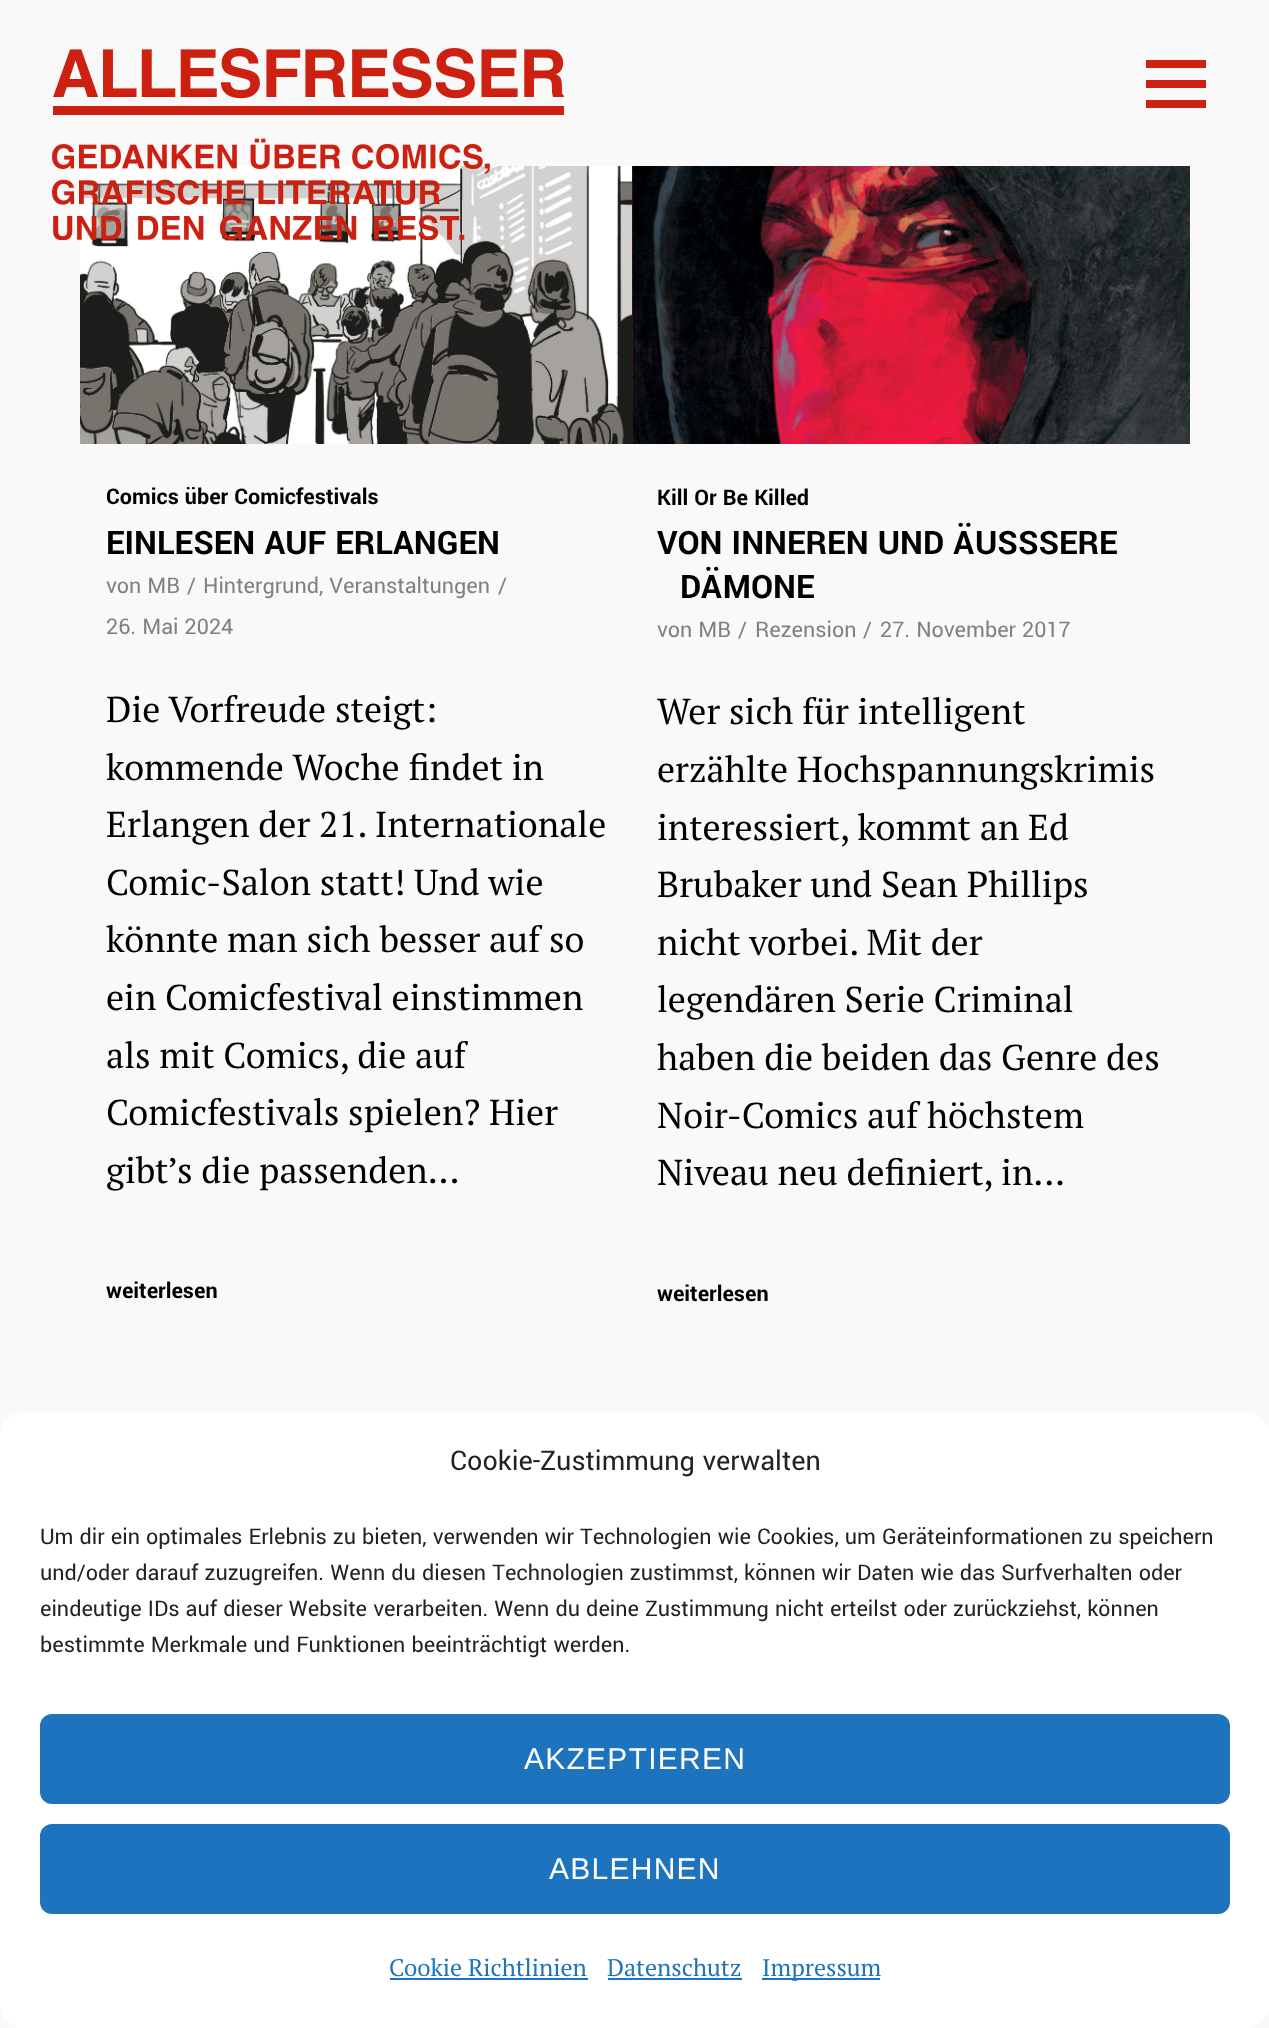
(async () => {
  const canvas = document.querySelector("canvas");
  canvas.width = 1269;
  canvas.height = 2028;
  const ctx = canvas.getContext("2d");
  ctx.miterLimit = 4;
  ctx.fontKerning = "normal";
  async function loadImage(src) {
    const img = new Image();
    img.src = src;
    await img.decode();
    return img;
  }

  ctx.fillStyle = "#f9f9f9";
  ctx.fillRect(0, 0, 1269, 2028);
  ctx.drawImage(await loadImage("img/2.png"), 80, 166, 552, 278);
  ctx.drawImage(await loadImage("img/1.png"), 52, 48, 512, 192);
  for (const [x, y, w, h, color] of [
    [1146, 60, 60, 8, "#cc2011"],
    [1146, 80, 60, 8, "#cc2011"],
    [1146, 100, 60, 8, "#cc2011"],
  ]) {
    ctx.fillStyle = color;
    ctx.fillRect(x, y, w, h);
  }
  ctx.drawImage(await loadImage("img/3.png"), 632, 166, 558, 278);
  ctx.fillStyle = "#ffffff";
  ctx.beginPath();
  ctx.roundRect(0, 1412, 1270, 616, 24);
  ctx.fill();
  ctx.fillStyle = "#1e73be";
  ctx.beginPath();
  ctx.roundRect(41, 1715, 1188, 88, 11);
  ctx.fill();
  ctx.strokeStyle = "#1e73be";
  ctx.lineWidth = 2;
  ctx.stroke();
  ctx.beginPath();
  ctx.roundRect(41, 1825, 1188, 88, 11);
  ctx.fill();
  ctx.stroke();
  for (const [x, y, w, h, color] of [
    [390, 1978, 198, 2, "#1e73be"],
    [608, 1978, 134, 2, "#1e73be"],
    [762, 1978, 118, 2, "#1e73be"],
  ]) {
    ctx.fillStyle = color;
    ctx.fillRect(x, y, w, h);
  }
  ctx.font = "bold 24px Yantramanav";
  ctx.fillStyle = "#000000";
  ctx.fillText("Comics über Comicfestivals", 106, 504);
  ctx.font = "bold 36px Yantramanav";
  ctx.fillText("EINLESEN AUF ERLANGEN", 106, 554);
  ctx.font = "24px Yantramanav";
  ctx.fillStyle = "#808080";
  for (const [text, x, y] of [
    ["von MB", 106, 593],
    ["/", 187, 593],
    ["Hintergrund, Veranstaltungen", 203, 593],
    ["/", 498, 593],
    ["26. Mai 2024", 106, 634],
  ]) {
    ctx.fillText(text, x, y);
  }
  ctx.font = "36px PT Serif";
  ctx.fillStyle = "#000000";
  for (const [text, x, y] of [
    ["Die Vorfreude steigt:", 106, 722],
    ["kommende Woche findet in", 106, 780],
    ["Erlangen der 21. Internationale", 106, 837],
    ["Comic-Salon statt! Und wie", 106, 895],
    ["könnte man sich besser auf so", 106, 952],
    ["ein Comicfestival einstimmen", 106, 1010],
    ["als mit Comics, die auf", 106, 1068],
    ["Comicfestivals spielen? Hier", 106, 1125],
    ["gibt’s die passenden...", 106, 1183],
  ]) {
    ctx.fillText(text, x, y);
  }
  ctx.font = "bold 24px Yantramanav";
  ctx.fillText("weiterlesen", 106, 1298);
  ctx.fillText("Kill Or Be Killed", 657, 505);
  ctx.font = "bold 36px Yantramanav";
  ctx.fillText("VON INNEREN UND ÄUSSSERE", 657, 554);
  ctx.fillText("DÄMONE", 680, 598);
  ctx.font = "24px Yantramanav";
  ctx.fillStyle = "#808080";
  for (const [text, x, y] of [
    ["von MB", 657, 637],
    ["/", 738, 637],
    ["Rezension", 755, 637],
    ["/", 863, 637],
    ["27. November 2017", 880, 637],
  ]) {
    ctx.fillText(text, x, y);
  }
  ctx.font = "36px PT Serif";
  ctx.fillStyle = "#000000";
  for (const [text, x, y] of [
    ["Wer sich für intelligent", 657, 724],
    ["erzählte Hochspannungskrimis", 657, 782],
    ["interessiert, kommt an Ed", 657, 840],
    ["Brubaker und Sean Phillips", 657, 897],
    ["nicht vorbei. Mit der", 657, 955],
    ["legendären Serie Criminal", 657, 1012],
    ["haben die beiden das Genre des", 657, 1070],
    ["Noir-Comics auf höchstem", 657, 1128],
    ["Niveau neu definiert, in...", 657, 1185],
  ]) {
    ctx.fillText(text, x, y);
  }
  ctx.font = "bold 24px Yantramanav";
  ctx.fillText("weiterlesen", 657, 1301);
  ctx.font = "30px Yantramanav";
  ctx.fillStyle = "#222222";
  ctx.fillText("Cookie-Zustimmung verwalten", 450, 1470);
  ctx.font = "24px Yantramanav";
  for (const [text, x, y] of [
    ["Um dir ein optimales Erlebnis zu bieten, verwenden wir Technologien wie Cookies, um Geräteinformationen zu speichern", 40, 1544],
    ["und/oder darauf zuzugreifen. Wenn du diesen Technologien zustimmst, können wir Daten wie das Surfverhalten oder", 40, 1580],
    ["eindeutige IDs auf dieser Website verarbeiten. Wenn du deine Zustimmung nicht erteilst oder zurückziehst, können", 40, 1616],
    ["bestimmte Merkmale und Funktionen beeinträchtigt werden.", 40, 1652],
  ]) {
    ctx.fillText(text, x, y);
  }
  ctx.letterSpacing = "1.25px";
  ctx.font = "30px Liberation Sans";
  ctx.fillStyle = "#ffffff";
  ctx.fillText("AKZEPTIEREN", 524, 1769);
  ctx.fillText("ABLEHNEN", 549, 1879);
  ctx.letterSpacing = "0px";
  ctx.font = "24px PT Serif";
  ctx.fillStyle = "#1e73be";
  for (const [text, x, y] of [
    ["Cookie Richtlinien", 389, 1976],
    ["Datenschutz", 607, 1976],
    ["Impressum", 762, 1976],
  ]) {
    ctx.fillText(text, x, y);
  }
})();
